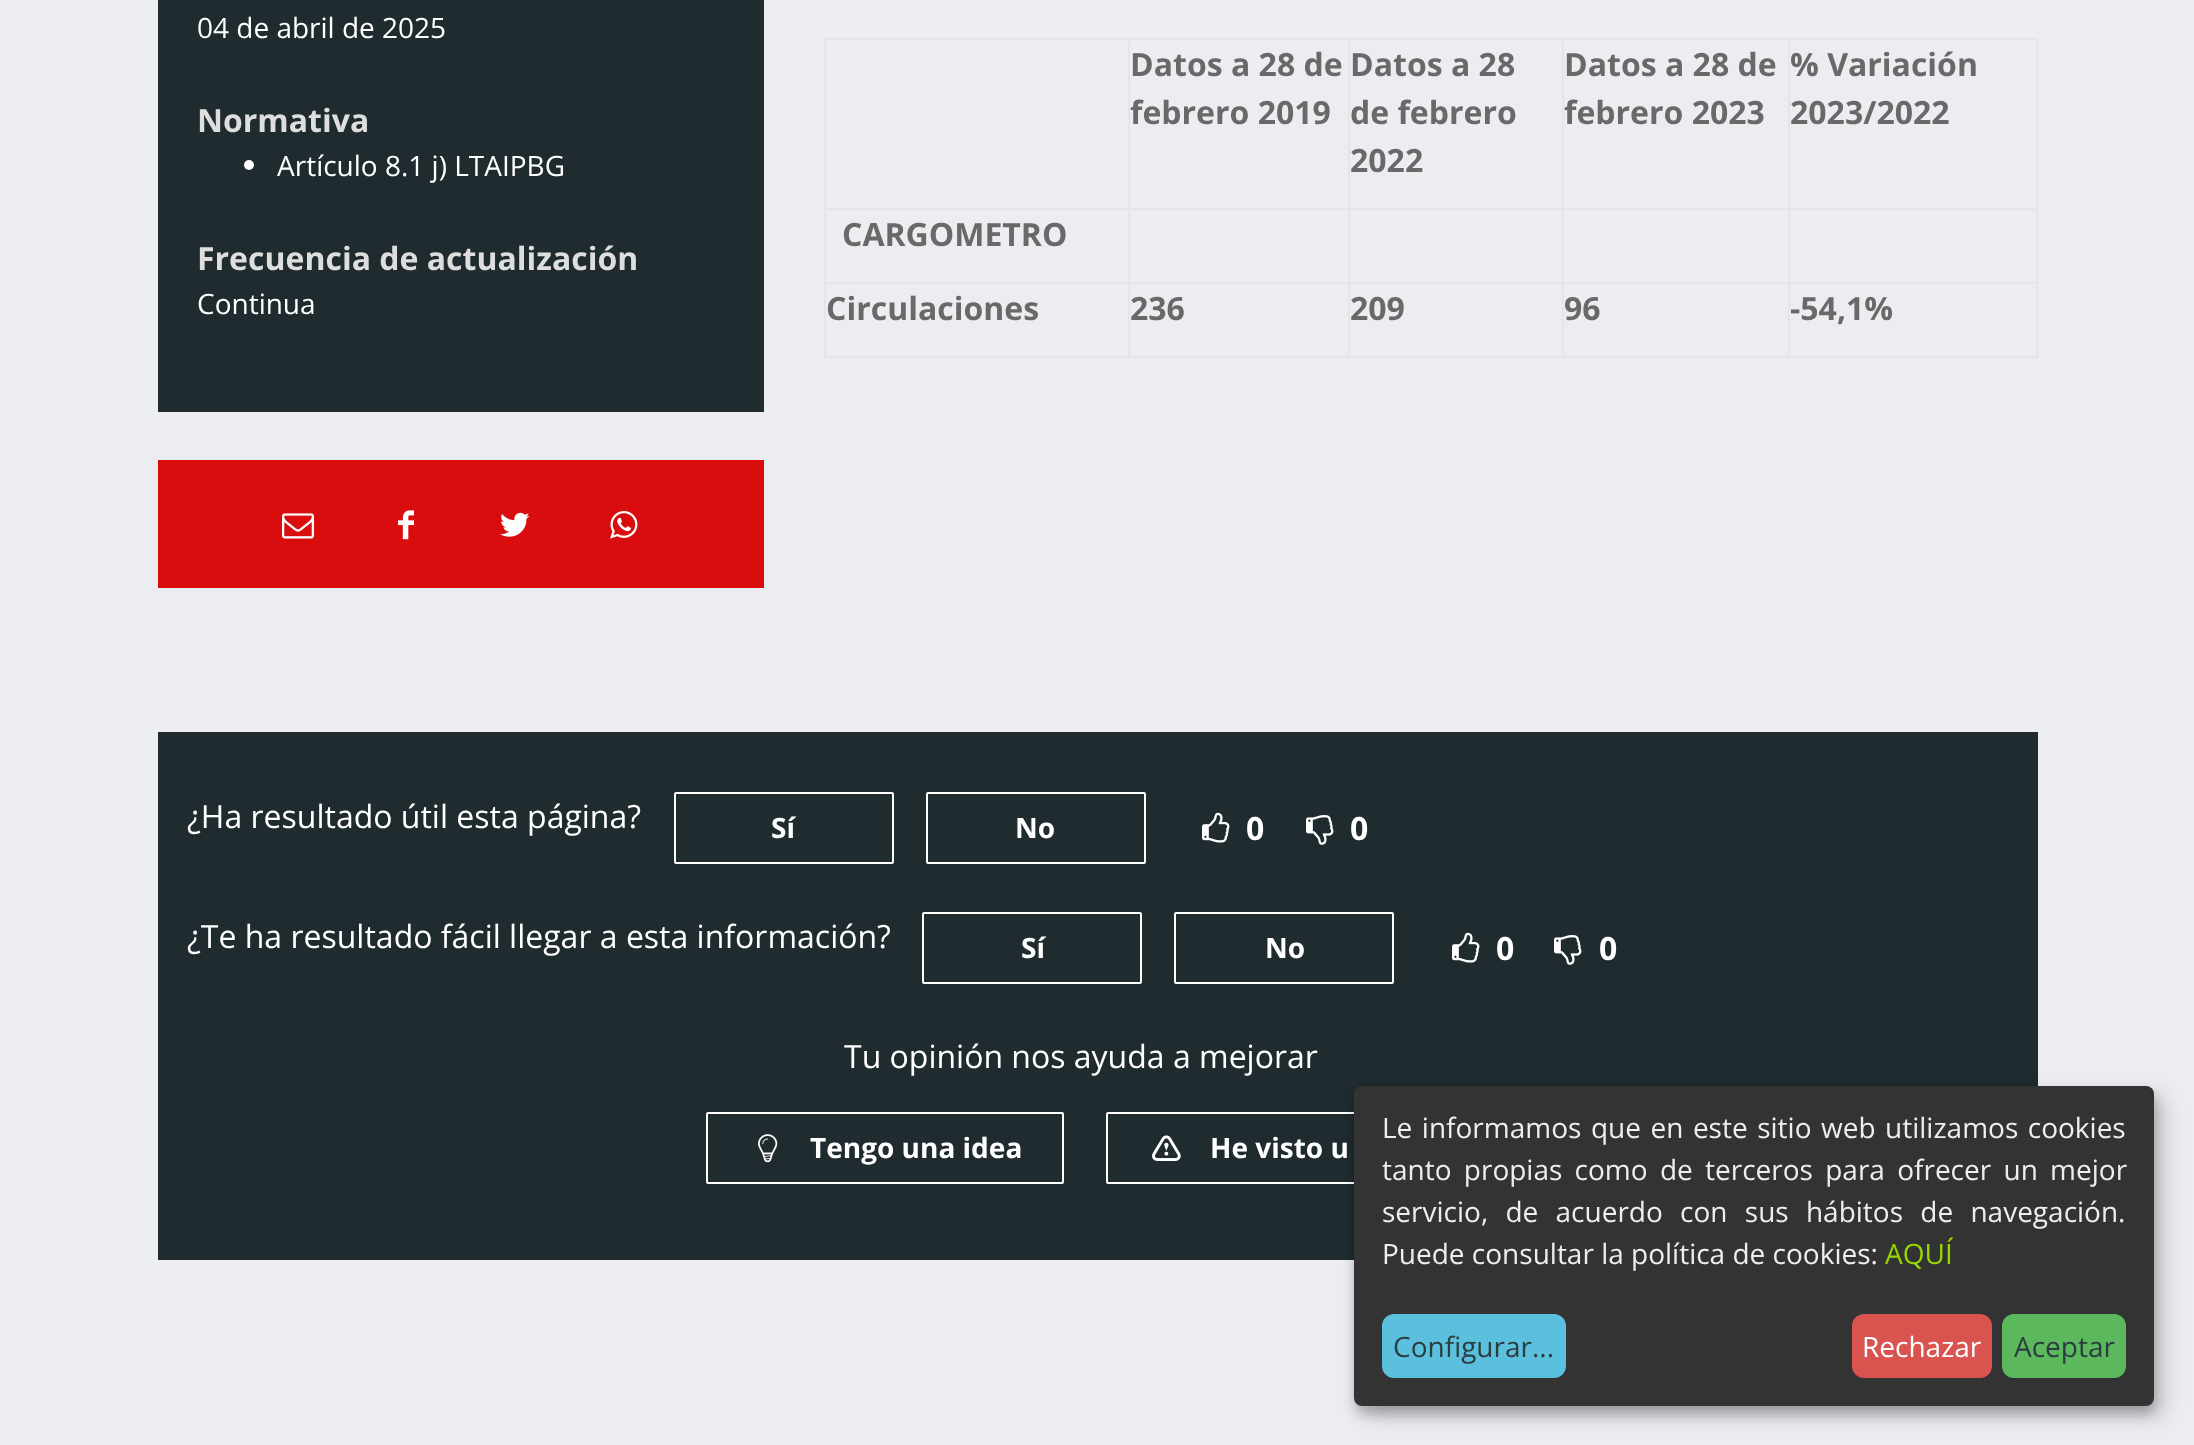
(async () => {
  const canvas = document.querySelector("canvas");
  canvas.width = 2194;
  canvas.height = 1445;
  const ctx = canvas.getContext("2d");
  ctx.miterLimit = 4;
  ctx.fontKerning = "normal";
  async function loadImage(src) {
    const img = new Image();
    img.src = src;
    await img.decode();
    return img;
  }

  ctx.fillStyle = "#ebedf1";
  ctx.fillRect(0, 0, 2194, 1445);
  ctx.fillStyle = "#1f2b2e";
  ctx.fillRect(158, 0, 606, 412);
  ctx.fillStyle = "#ffffff";
  ctx.beginPath();
  ctx.arc(249, 165, 5, 0, Math.PI * 2);
  ctx.fill();
  for (const [x, y, w, h, color] of [
    [824, 38, 1214, 2, "#e5e5e5"],
    [2036, 38, 2, 320, "#e5e5e5"],
    [824, 356, 1214, 2, "#e5e5e5"],
    [824, 38, 2, 320, "#e5e5e5"],
    [1788, 208, 250, 2, "#e5e5e5"],
    [1788, 282, 250, 2, "#e5e5e5"],
    [1788, 282, 2, 76, "#e5e5e5"],
    [1562, 282, 228, 2, "#e5e5e5"],
    [1788, 208, 2, 76, "#e5e5e5"],
    [1562, 208, 228, 2, "#e5e5e5"],
    [1562, 282, 2, 76, "#e5e5e5"],
    [1348, 282, 216, 2, "#e5e5e5"],
    [1562, 208, 2, 76, "#e5e5e5"],
    [1348, 208, 216, 2, "#e5e5e5"],
    [1348, 282, 2, 76, "#e5e5e5"],
    [1128, 282, 222, 2, "#e5e5e5"],
    [1348, 208, 2, 76, "#e5e5e5"],
    [1128, 208, 222, 2, "#e5e5e5"],
    [1128, 282, 2, 76, "#e5e5e5"],
    [824, 282, 306, 2, "#e5e5e5"],
    [1128, 208, 2, 76, "#e5e5e5"],
    [824, 208, 306, 2, "#e5e5e5"],
    [1128, 38, 2, 172, "#e5e5e5"],
    [1348, 38, 2, 172, "#e5e5e5"],
    [1562, 38, 2, 172, "#e5e5e5"],
    [1788, 38, 2, 172, "#e5e5e5"],
    [158, 460, 606, 128, "#d90d0d"],
  ]) {
    ctx.fillStyle = color;
    ctx.fillRect(x, y, w, h);
  }
  ctx.drawImage(await loadImage("img/1.png"), 282, 513, 32, 26);
  ctx.drawImage(await loadImage("img/2.png"), 398, 510, 16, 30);
  ctx.drawImage(await loadImage("img/3.png"), 500, 512, 30, 25);
  ctx.drawImage(await loadImage("img/4.png"), 610, 511, 28, 28);
  ctx.fillStyle = "#1f2b2e";
  ctx.fillRect(158, 732, 1880, 528);
  ctx.beginPath();
  ctx.roundRect(675, 793, 218, 70, 1);
  ctx.strokeStyle = "#ffffff";
  ctx.lineWidth = 2;
  ctx.stroke();
  ctx.beginPath();
  ctx.roundRect(927, 793, 218, 70, 1);
  ctx.stroke();
  ctx.drawImage(await loadImage("img/5.png"), 1202, 812, 28, 31);
  ctx.drawImage(await loadImage("img/6.png"), 1306, 815, 28, 30);
  ctx.beginPath();
  ctx.roundRect(923, 913, 218, 70, 1);
  ctx.stroke();
  ctx.beginPath();
  ctx.roundRect(1175, 913, 218, 70, 1);
  ctx.stroke();
  ctx.drawImage(await loadImage("img/5.png"), 1452, 932, 28, 31);
  ctx.drawImage(await loadImage("img/6.png"), 1554, 935, 28, 30);
  ctx.beginPath();
  ctx.roundRect(707, 1113, 356, 70, 1);
  ctx.stroke();
  ctx.drawImage(await loadImage("img/7.png"), 758, 1134, 20, 29);
  ctx.beginPath();
  ctx.roundRect(1107, 1113, 380, 70, 1);
  ctx.stroke();
  ctx.drawImage(await loadImage("img/8.png"), 1152, 1135, 29, 26);
  ctx.fillStyle = "rgba(0, 0, 0, 0.19)";
  ctx.filter = "blur(10px)";
  ctx.beginPath();
  ctx.roundRect(1364, 1096, 800, 320, 8);
  ctx.fill();
  ctx.filter = "none";
  ctx.fillStyle = "rgba(0, 0, 0, 0.2)";
  ctx.filter = "blur(6px)";
  ctx.beginPath();
  ctx.roundRect(1354, 1094, 800, 320, 8);
  ctx.fill();
  ctx.filter = "none";
  ctx.fillStyle = "#333333";
  ctx.beginPath();
  ctx.roundRect(1354, 1086, 800, 320, 8);
  ctx.fill();
  ctx.fillStyle = "#5bc0de";
  ctx.beginPath();
  ctx.roundRect(1382, 1314, 184, 64, 12);
  ctx.fill();
  ctx.fillStyle = "#d9534f";
  ctx.beginPath();
  ctx.roundRect(1852, 1314, 140, 64, 12);
  ctx.fill();
  ctx.fillStyle = "#5cb85c";
  ctx.beginPath();
  ctx.roundRect(2002, 1314, 124, 64, 12);
  ctx.fill();
  ctx.font = "28px Open Sans";
  ctx.fillStyle = "#ffffff";
  ctx.fillText("04 de abril de 2025", 197, 38);
  ctx.font = "bold 32px Open Sans";
  ctx.fillStyle = "#dedede";
  ctx.fillText("Normativa", 197, 132);
  ctx.font = "28px Open Sans";
  ctx.fillStyle = "#ffffff";
  ctx.fillText("Artículo 8.1 j) LTAIPBG", 277, 176);
  ctx.font = "bold 32px Open Sans";
  ctx.fillStyle = "#dedede";
  ctx.fillText("Frecuencia de actualización", 197, 270);
  ctx.font = "28px Open Sans";
  ctx.fillStyle = "#ffffff";
  ctx.fillText("Continua", 197, 314);
  ctx.font = "bold 32px Open Sans";
  ctx.fillStyle = "#696969";
  for (const [text, x, y] of [
    ["Datos a 28 de", 1130, 76],
    ["febrero 2019", 1130, 124],
    ["Datos a 28", 1350, 76],
    ["de febrero", 1350, 124],
    ["2022", 1350, 172],
    ["Datos a 28 de", 1564, 76],
    ["febrero 2023", 1564, 124],
    ["% Variación", 1790, 76],
    ["2023/2022", 1790, 124],
    ["CARGOMETRO", 842, 246],
    ["Circulaciones", 826, 320],
    ["236", 1130, 320],
    ["209", 1350, 320],
    ["96", 1564, 320],
    ["-54,1%", 1790, 320],
  ]) {
    ctx.fillText(text, x, y);
  }
  ctx.font = "32px Open Sans";
  ctx.fillStyle = "#ffffff";
  ctx.fillText("¿Ha resultado útil esta página?", 187, 828);
  ctx.font = "bold 28px Open Sans";
  ctx.fillText("Sí", 771, 838);
  ctx.fillText("No", 1015, 838);
  ctx.font = "bold 32px Open Sans";
  ctx.fillText("0", 1246, 840);
  ctx.fillText("0", 1350, 840);
  ctx.font = "32px Open Sans";
  ctx.fillText("¿Te ha resultado fácil llegar a esta información?", 187, 948);
  ctx.font = "bold 28px Open Sans";
  ctx.fillText("Sí", 1021, 958);
  ctx.fillText("No", 1265, 958);
  ctx.font = "bold 32px Open Sans";
  ctx.fillText("0", 1496, 960);
  ctx.fillText("0", 1599, 960);
  ctx.font = "32px Open Sans";
  ctx.fillText("Tu opinión nos ayuda a mejorar", 844, 1068);
  ctx.font = "bold 28px Open Sans";
  ctx.fillText("Tengo una idea", 810, 1158);
  ctx.fillText("He visto u", 1210, 1158);
  ctx.wordSpacing = "2.25px";
  ctx.font = "28px Open Sans";
  ctx.fillStyle = "#eeeeee";
  ctx.fillText("Le informamos que en este sitio web utilizamos cookies", 1382, 1138);
  ctx.wordSpacing = "5px";
  ctx.fillText("tanto propias como de terceros para ofrecer un mejor", 1382, 1180);
  ctx.wordSpacing = "10px";
  ctx.fillText("servicio, de acuerdo con sus hábitos de navegación.", 1382, 1222);
  ctx.wordSpacing = "0px";
  ctx.fillText("Puede consultar la política de cookies:", 1382, 1264);
  ctx.fillStyle = "#97d700";
  ctx.fillText("AQUÍ", 1885, 1264);
  ctx.fillStyle = "#2b3d3f";
  ctx.fillText("Configurar...", 1393, 1357);
  ctx.fillStyle = "#ffffff";
  ctx.fillText("Rechazar", 1862, 1357);
  ctx.fillStyle = "#2b3d3f";
  ctx.fillText("Aceptar", 2014, 1357);
})();
